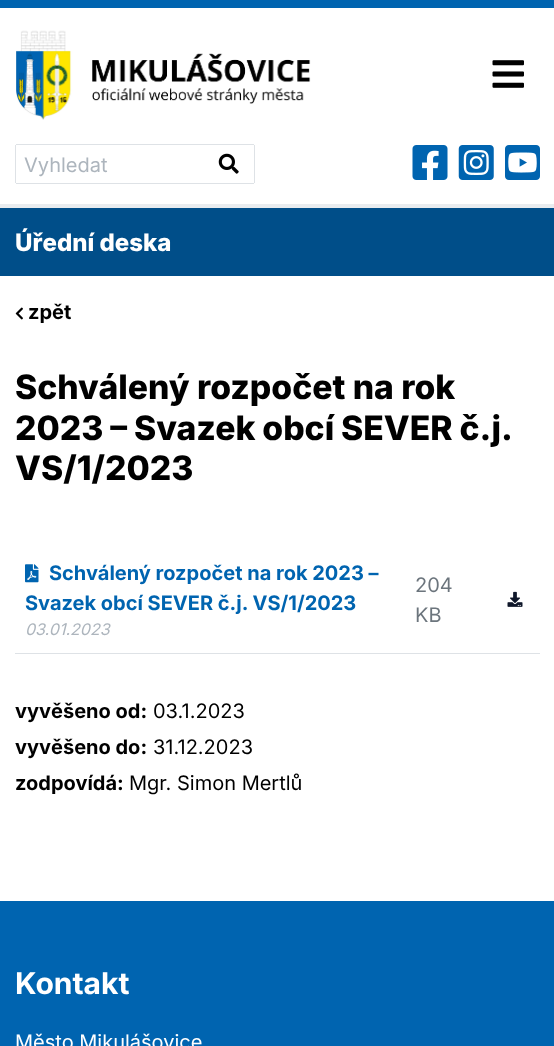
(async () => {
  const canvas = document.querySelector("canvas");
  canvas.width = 554;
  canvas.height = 1046;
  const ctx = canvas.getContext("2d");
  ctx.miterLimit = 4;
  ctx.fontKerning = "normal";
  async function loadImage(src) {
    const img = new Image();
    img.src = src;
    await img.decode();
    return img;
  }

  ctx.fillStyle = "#ffffff";
  ctx.fillRect(0, 0, 554, 1046);
  ctx.fillStyle = "#0064b0";
  ctx.fillRect(0, 0, 554, 8);
  ctx.fillStyle = "#e9ecef";
  ctx.fillRect(0, 204, 554, 4);
  ctx.drawImage(await loadImage("img/1.png"), 16, 30, 295, 90);
  ctx.drawImage(await loadImage("img/2.png"), 492, 60, 32, 28);
  for (const [x, y, w, h, color] of [
    [16, 144, 238, 1, "#dee2e6"],
    [16, 183, 238, 1, "#dee2e6"],
    [15, 145, 1, 38, "#dee2e6"],
    [254, 145, 1, 38, "#dee2e6"],
  ]) {
    ctx.fillStyle = color;
    ctx.fillRect(x, y, w, h);
  }
  ctx.drawImage(await loadImage("img/3.png"), 218, 153, 21, 21);
  ctx.drawImage(await loadImage("img/4.png"), 412, 145, 36, 35);
  ctx.drawImage(await loadImage("img/5.png"), 458, 145, 36, 35);
  ctx.drawImage(await loadImage("img/6.png"), 505, 145, 35, 35);
  ctx.fillStyle = "#004e89";
  ctx.fillRect(0, 208, 554, 68);
  ctx.drawImage(await loadImage("img/7.png"), 15, 307, 8, 13);
  ctx.drawImage(await loadImage("img/8.png"), 25, 564, 14, 19);
  ctx.fillStyle = "#dee2e6";
  ctx.fillRect(15, 653, 525, 1);
  ctx.drawImage(await loadImage("img/9.png"), 507, 591, 16, 16);
  ctx.fillStyle = "#0064b0";
  ctx.fillRect(0, 901, 554, 145);
  ctx.font = "20px Inter";
  ctx.fillStyle = "#adb5bd";
  ctx.fillText("Vyhledat", 24, 172);
  ctx.font = "800 24px Inter";
  ctx.fillStyle = "#ffffff";
  ctx.fillText("Úřední deska", 15, 251);
  ctx.font = "bold 20px Inter";
  ctx.fillStyle = "#000000";
  ctx.fillText("zpět", 28, 319);
  ctx.font = "800 33.7px Inter";
  ctx.fillText("Schválený rozpočet na rok", 15, 399);
  ctx.wordSpacing = "-0.5px";
  ctx.fillText("2023 – Svazek obcí SEVER č.j.", 15, 440);
  ctx.wordSpacing = "0px";
  ctx.fillText("VS/1/2023", 15, 480);
  ctx.font = "bold 20px Inter";
  ctx.fillStyle = "#0064b0";
  ctx.fillText("Schválený rozpočet na rok 2023 –", 49, 580);
  ctx.fillText("Svazek obcí SEVER č.j. VS/1/2023", 25, 610);
  ctx.font = "italic 16px Inter";
  ctx.fillStyle = "#adb5bd";
  ctx.fillText("03.01.2023", 25, 635);
  ctx.font = "20px Inter";
  ctx.fillStyle = "#6c757d";
  ctx.fillText("204", 415, 592);
  ctx.fillText("KB", 415, 622);
  ctx.font = "bold 20px Inter";
  ctx.fillStyle = "#000000";
  ctx.fillText("vyvěšeno od:", 15, 718);
  ctx.font = "20px Inter";
  ctx.fillText("03.1.2023", 153, 718);
  ctx.font = "bold 20px Inter";
  ctx.fillText("vyvěšeno do:", 15, 754);
  ctx.font = "20px Inter";
  ctx.fillText("31.12.2023", 153, 754);
  ctx.font = "bold 20px Inter";
  ctx.fillText("zodpovídá:", 15, 790);
  ctx.font = "20px Inter";
  ctx.fillText("Mgr. Simon Mertlů", 129, 790);
  ctx.font = "bold 30px Inter";
  ctx.fillStyle = "#ffffff";
  ctx.fillText("Kontakt", 15, 994);
  ctx.font = "20px Inter";
  ctx.fillText("Město Mikulášovice", 15, 1049);
})();
